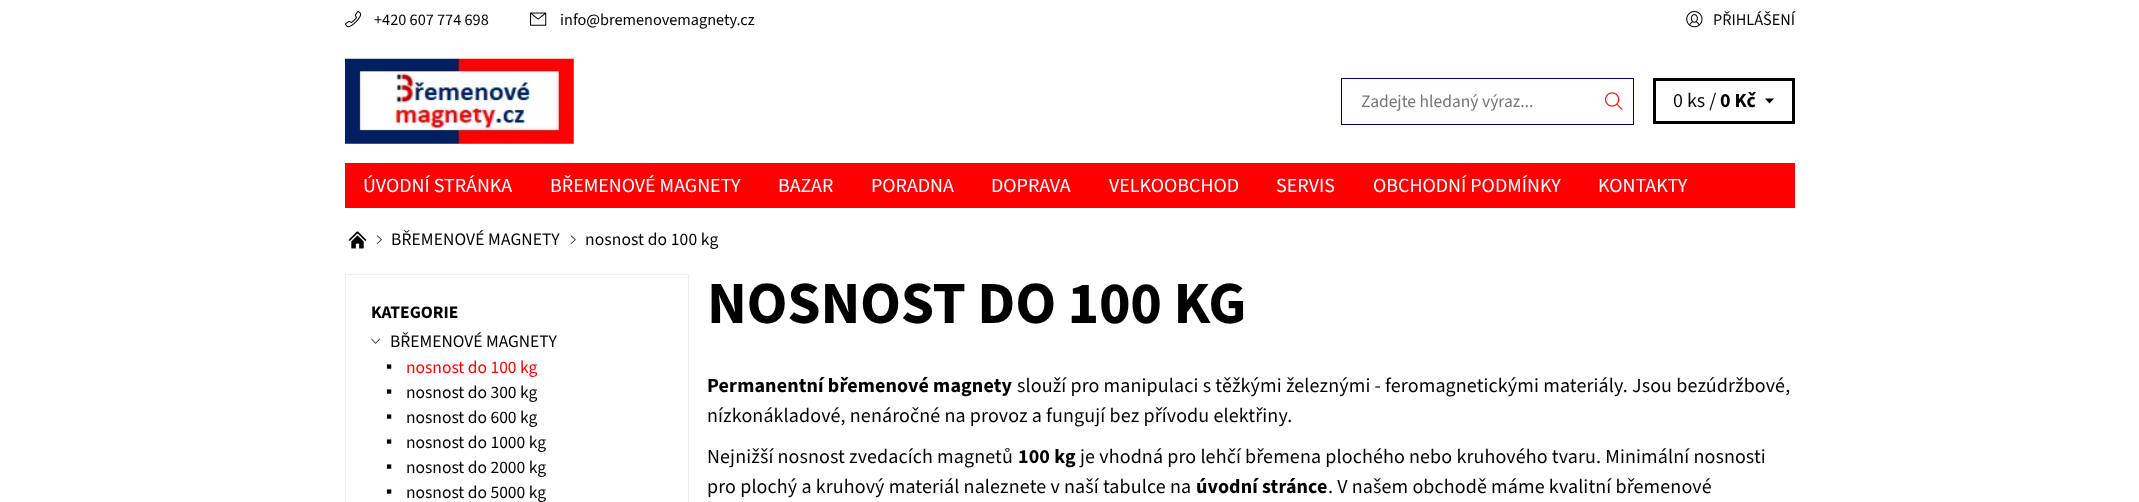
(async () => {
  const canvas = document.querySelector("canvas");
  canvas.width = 2139;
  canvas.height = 502;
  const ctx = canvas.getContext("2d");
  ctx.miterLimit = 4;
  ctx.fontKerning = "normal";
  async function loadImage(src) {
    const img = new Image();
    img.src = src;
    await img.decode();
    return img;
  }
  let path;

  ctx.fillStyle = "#ffffff";
  ctx.fillRect(0, 0, 2139, 502);
  ctx.drawImage(await loadImage("img/1.png"), 345, 11, 17, 17);
  ctx.drawImage(await loadImage("img/2.png"), 530, 12, 17, 14);
  ctx.drawImage(await loadImage("img/3.png"), 1686, 11, 17, 17);
  ctx.drawImage(await loadImage("img/4.png"), 345, 58, 229, 86);
  for (const [x, y, w, h, color] of [
    [1341, 78, 293, 1, "#010066"],
    [1341, 124, 254, 1, "#010066"],
    [1341, 78, 1, 47, "#010066"],
    [1633, 78, 1, 47, "#010066"],
    [1595, 124, 39, 1, "#010066"],
  ]) {
    ctx.fillStyle = color;
    ctx.fillRect(x, y, w, h);
  }
  ctx.drawImage(await loadImage("img/5.png"), 1605, 92, 18, 18);
  ctx.strokeStyle = "#000000";
  ctx.lineWidth = 3;
  ctx.strokeRect(1654.5, 79.5, 139, 43);
  ctx.fillStyle = "#000000";
  path = new Path2D("M1769.5 98.5H1774L1769.5 103.5L1765 98.5Z");
  ctx.fill(path);
  ctx.fillStyle = "#fe0000";
  ctx.fillRect(345, 163, 1450, 45);
  ctx.drawImage(await loadImage("img/6.png"), 348, 231, 19, 18);
  ctx.drawImage(await loadImage("img/7.png"), 376, 235, 6, 9);
  ctx.drawImage(await loadImage("img/8.png"), 570, 235, 6, 9);
  ctx.strokeStyle = "#ededed";
  ctx.lineWidth = 1;
  ctx.strokeRect(345.5, 274.5, 343, 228);
  ctx.drawImage(await loadImage("img/9.png"), 371, 338, 9, 6);
  ctx.font = "16.25px 'Source Sans 3'";
  ctx.fillStyle = "#000000";
  for (const [text, x, y] of [
    ["+420 607 774 698", 374, 25],
    ["info@bremenovemagnety.cz", 560, 25],
    ["PŘIHLÁŠENÍ", 1713, 25],
  ]) {
    ctx.fillText(text, x, y);
  }
  ctx.font = "17.5px 'Source Sans 3'";
  ctx.fillStyle = "#757575";
  ctx.fillText("Zadejte hledaný výraz...", 1361, 107);
  ctx.font = "20px 'Source Sans 3'";
  ctx.fillStyle = "#000000";
  ctx.fillText("0 ks /", 1673, 107);
  ctx.font = "bold 20px 'Source Sans 3'";
  ctx.fillText("0 Kč", 1720, 107);
  ctx.font = "20px 'Source Sans 3'";
  ctx.fillStyle = "#ffffff";
  for (const [text, x, y] of [
    ["ÚVODNÍ STRÁNKA", 363, 192],
    ["BŘEMENOVÉ MAGNETY", 550, 192],
    ["BAZAR", 778, 192],
    ["PORADNA", 871, 192],
    ["DOPRAVA", 991, 192],
    ["VELKOOBCHOD", 1109, 192],
    ["SERVIS", 1276, 192],
    ["OBCHODNÍ PODMÍNKY", 1373, 192],
    ["KONTAKTY", 1598, 192],
  ]) {
    ctx.fillText(text, x, y);
  }
  ctx.letterSpacing = "0.12px";
  ctx.font = "17.5px 'Source Sans 3'";
  ctx.fillStyle = "#000000";
  ctx.fillText("BŘEMENOVÉ MAGNETY", 391, 245);
  ctx.fillText("nosnost do 100 kg", 585, 245);
  ctx.letterSpacing = "0px";
  ctx.font = "bold 17.5px 'Source Sans 3'";
  ctx.fillText("KATEGORIE", 371, 318);
  ctx.font = "17.5px 'Source Sans 3'";
  ctx.fillText("BŘEMENOVÉ MAGNETY", 390, 347);
  ctx.font = "17.5px Liberation Serif";
  ctx.fillText("▪", 386, 372);
  ctx.font = "17.5px 'Source Sans 3'";
  ctx.fillStyle = "#fe0000";
  ctx.fillText("nosnost do 100 kg", 406, 373);
  ctx.font = "17.5px Liberation Serif";
  ctx.fillStyle = "#000000";
  ctx.fillText("▪", 386, 397);
  ctx.font = "17.5px 'Source Sans 3'";
  ctx.fillText("nosnost do 300 kg", 406, 398);
  ctx.font = "17.5px Liberation Serif";
  ctx.fillText("▪", 386, 422);
  ctx.font = "17.5px 'Source Sans 3'";
  ctx.fillText("nosnost do 600 kg", 406, 423);
  ctx.font = "17.5px Liberation Serif";
  ctx.fillText("▪", 386, 447);
  ctx.font = "17.5px 'Source Sans 3'";
  ctx.fillText("nosnost do 1000 kg", 406, 448);
  ctx.font = "17.5px Liberation Serif";
  ctx.fillText("▪", 386, 472);
  ctx.font = "17.5px 'Source Sans 3'";
  ctx.fillText("nosnost do 2000 kg", 406, 473);
  ctx.font = "17.5px Liberation Serif";
  ctx.fillText("▪", 386, 497);
  ctx.font = "17.5px 'Source Sans 3'";
  ctx.fillText("nosnost do 5000 kg", 406, 498);
  ctx.letterSpacing = "-0.3px";
  ctx.font = "bold 60px 'Source Sans 3'";
  ctx.fillText("NOSNOST DO 100 KG", 707, 323);
  ctx.letterSpacing = "0.12px";
  ctx.font = "bold 20px 'Source Sans 3'";
  ctx.fillText("Permanentní břemenové magnety", 707, 392);
  ctx.font = "20px 'Source Sans 3'";
  for (const [text, x, y] of [
    ["slouží pro manipulaci s těžkými železnými - feromagnetickými materiály. Jsou bezúdržbové,", 1017, 392],
    ["nízkonákladové, nenáročné na provoz a fungují bez přívodu elektřiny.", 707, 422],
    ["Nejnižší nosnost zvedacích magnetů", 707, 463],
  ]) {
    ctx.fillText(text, x, y);
  }
  ctx.font = "bold 20px 'Source Sans 3'";
  ctx.fillText("100 kg", 1018, 463);
  ctx.font = "20px 'Source Sans 3'";
  ctx.fillText("je vhodná pro lehčí břemena plochého nebo kruhového tvaru. Minimální nosnosti", 1080, 463);
  ctx.fillText("pro plochý a kruhový materiál naleznete v naší tabulce na", 707, 493);
  ctx.font = "bold 20px 'Source Sans 3'";
  ctx.fillText("úvodní stránce", 1196, 493);
  ctx.font = "20px 'Source Sans 3'";
  ctx.fillText(". V našem obchodě máme kvalitní břemenové", 1328, 493);
})();
